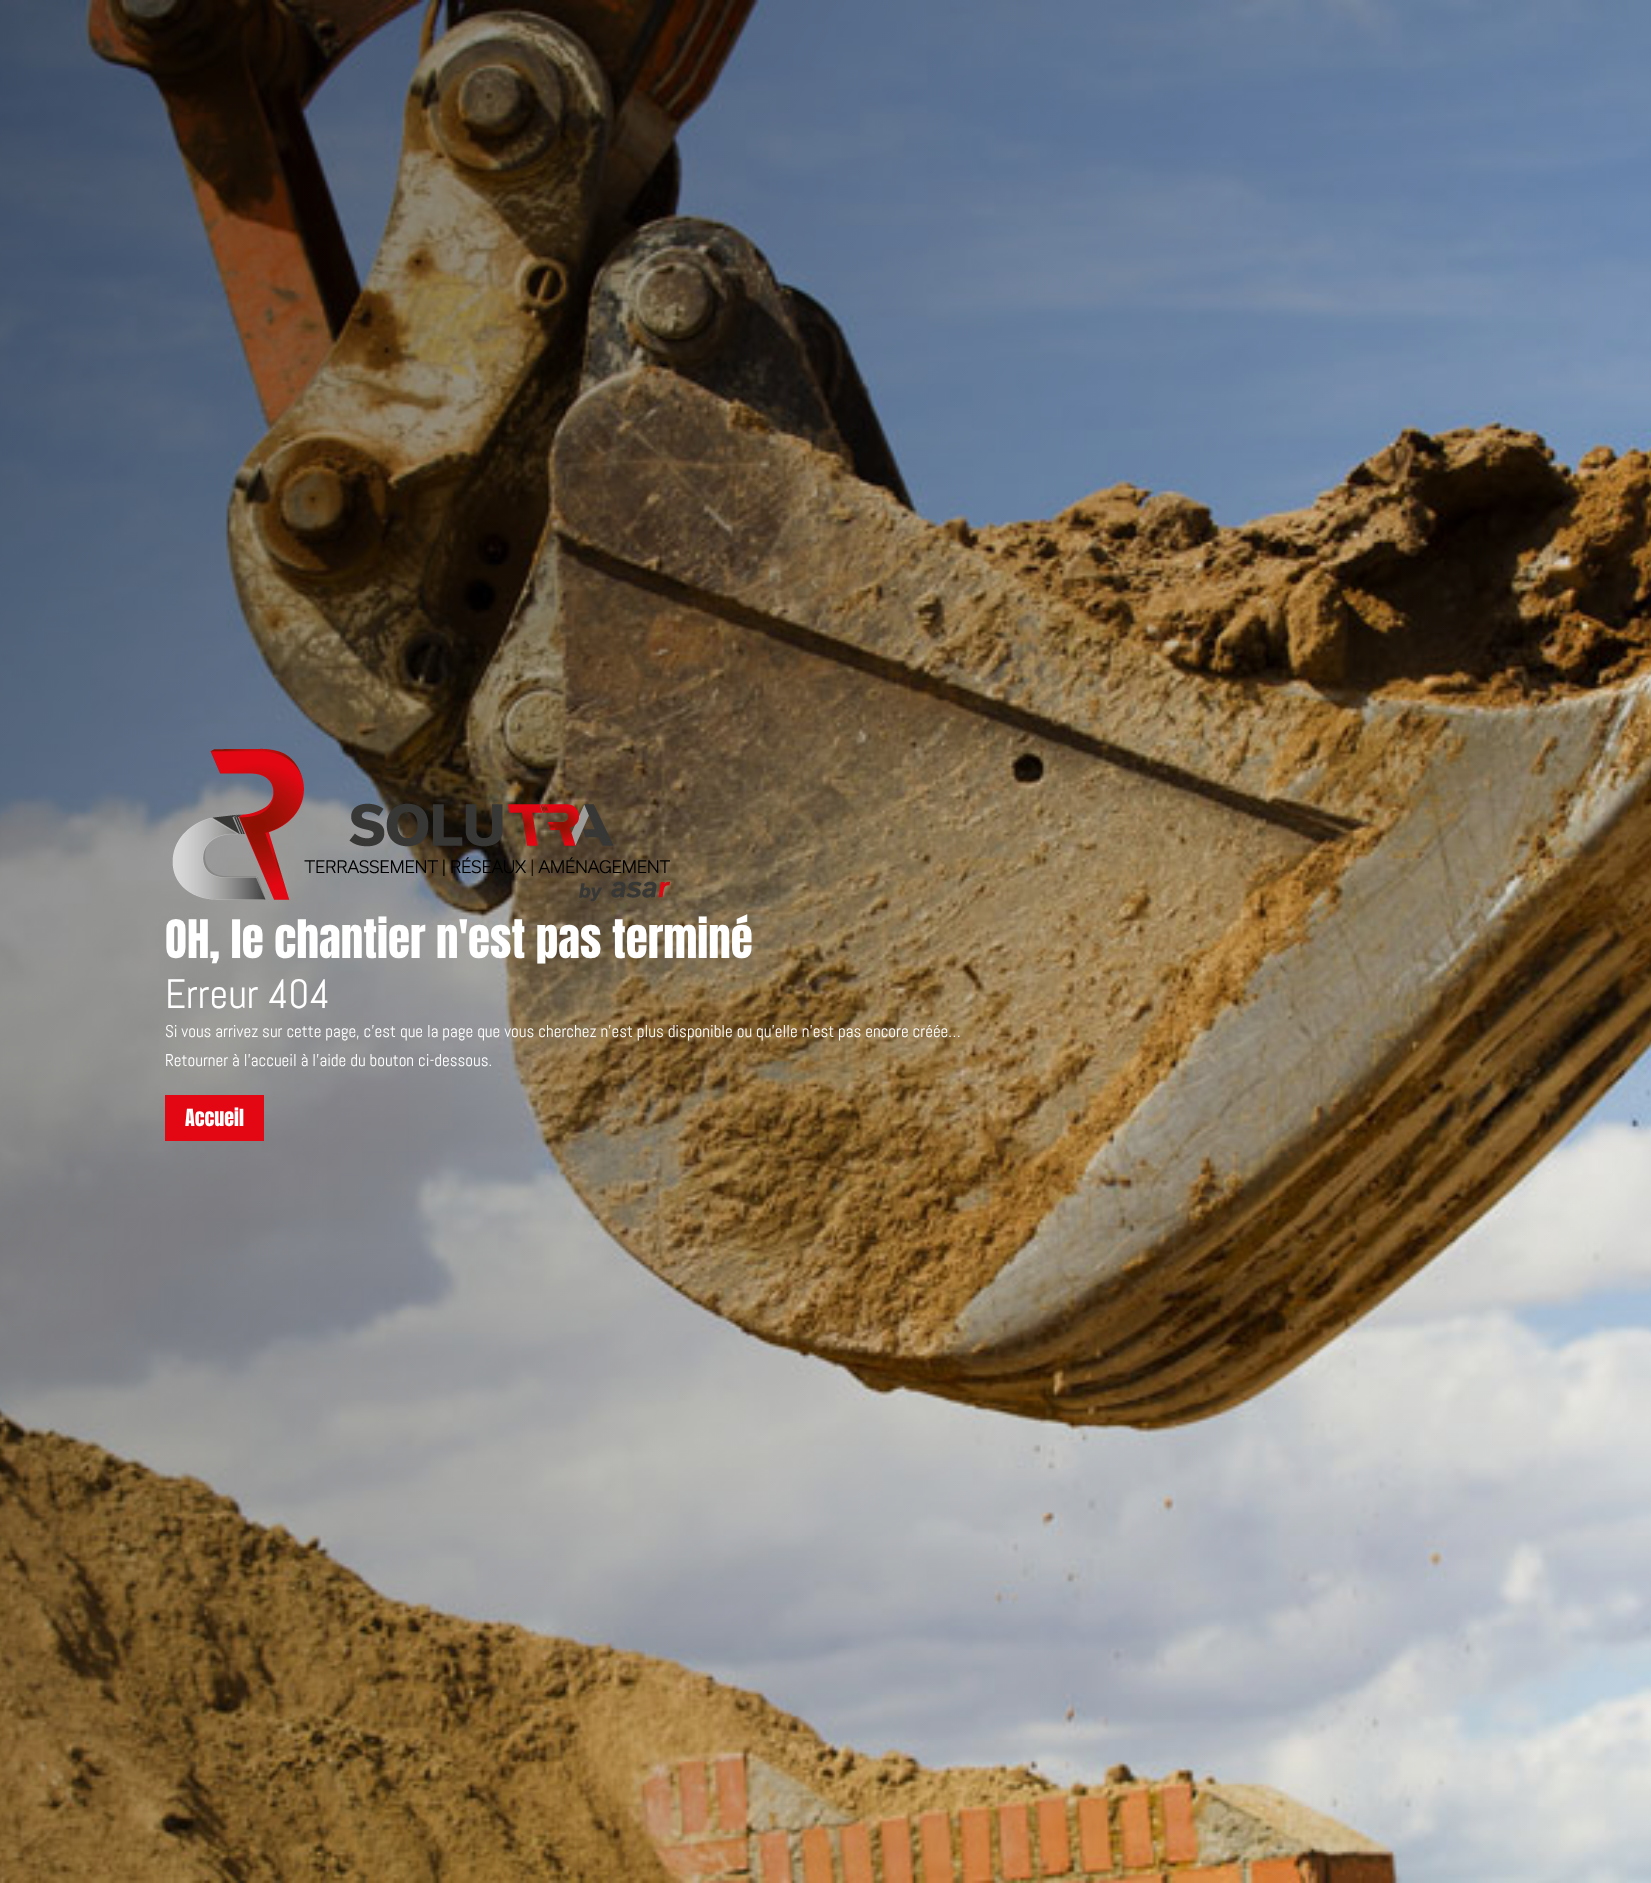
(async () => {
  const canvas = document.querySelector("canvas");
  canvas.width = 1651;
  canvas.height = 1883;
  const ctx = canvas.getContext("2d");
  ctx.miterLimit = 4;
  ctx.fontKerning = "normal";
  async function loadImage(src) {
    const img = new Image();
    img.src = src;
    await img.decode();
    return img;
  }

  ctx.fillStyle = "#ffffff";
  ctx.fillRect(0, 0, 1651, 1883);
  ctx.drawImage(await loadImage("img/1.png"), 0, 0, 1651, 1883);
  ctx.drawImage(await loadImage("img/2.png"), 172, 748, 498, 154);
  ctx.fillStyle = "#e30613";
  ctx.fillRect(165, 1095, 99, 46);
  ctx.font = "45px Anton";
  ctx.fillStyle = "#ffffff";
  ctx.fillText("OH, le chantier n'est pas terminé", 165, 958);
  ctx.font = "41px Abel";
  ctx.fillText("Erreur 404", 165, 1008);
  ctx.font = "17px Abel";
  ctx.fillText("Si vous arrivez sur cette page, c’est que la page que vous cherchez n’est plus disponible ou qu’elle n’est pas encore créée…", 165, 1037);
  ctx.fillText("Retourner à l’accueil à l’aide du bouton ci-dessous.", 165, 1066);
  ctx.font = "20px Anton";
  ctx.fillText("Accueil", 185, 1126);
})();
